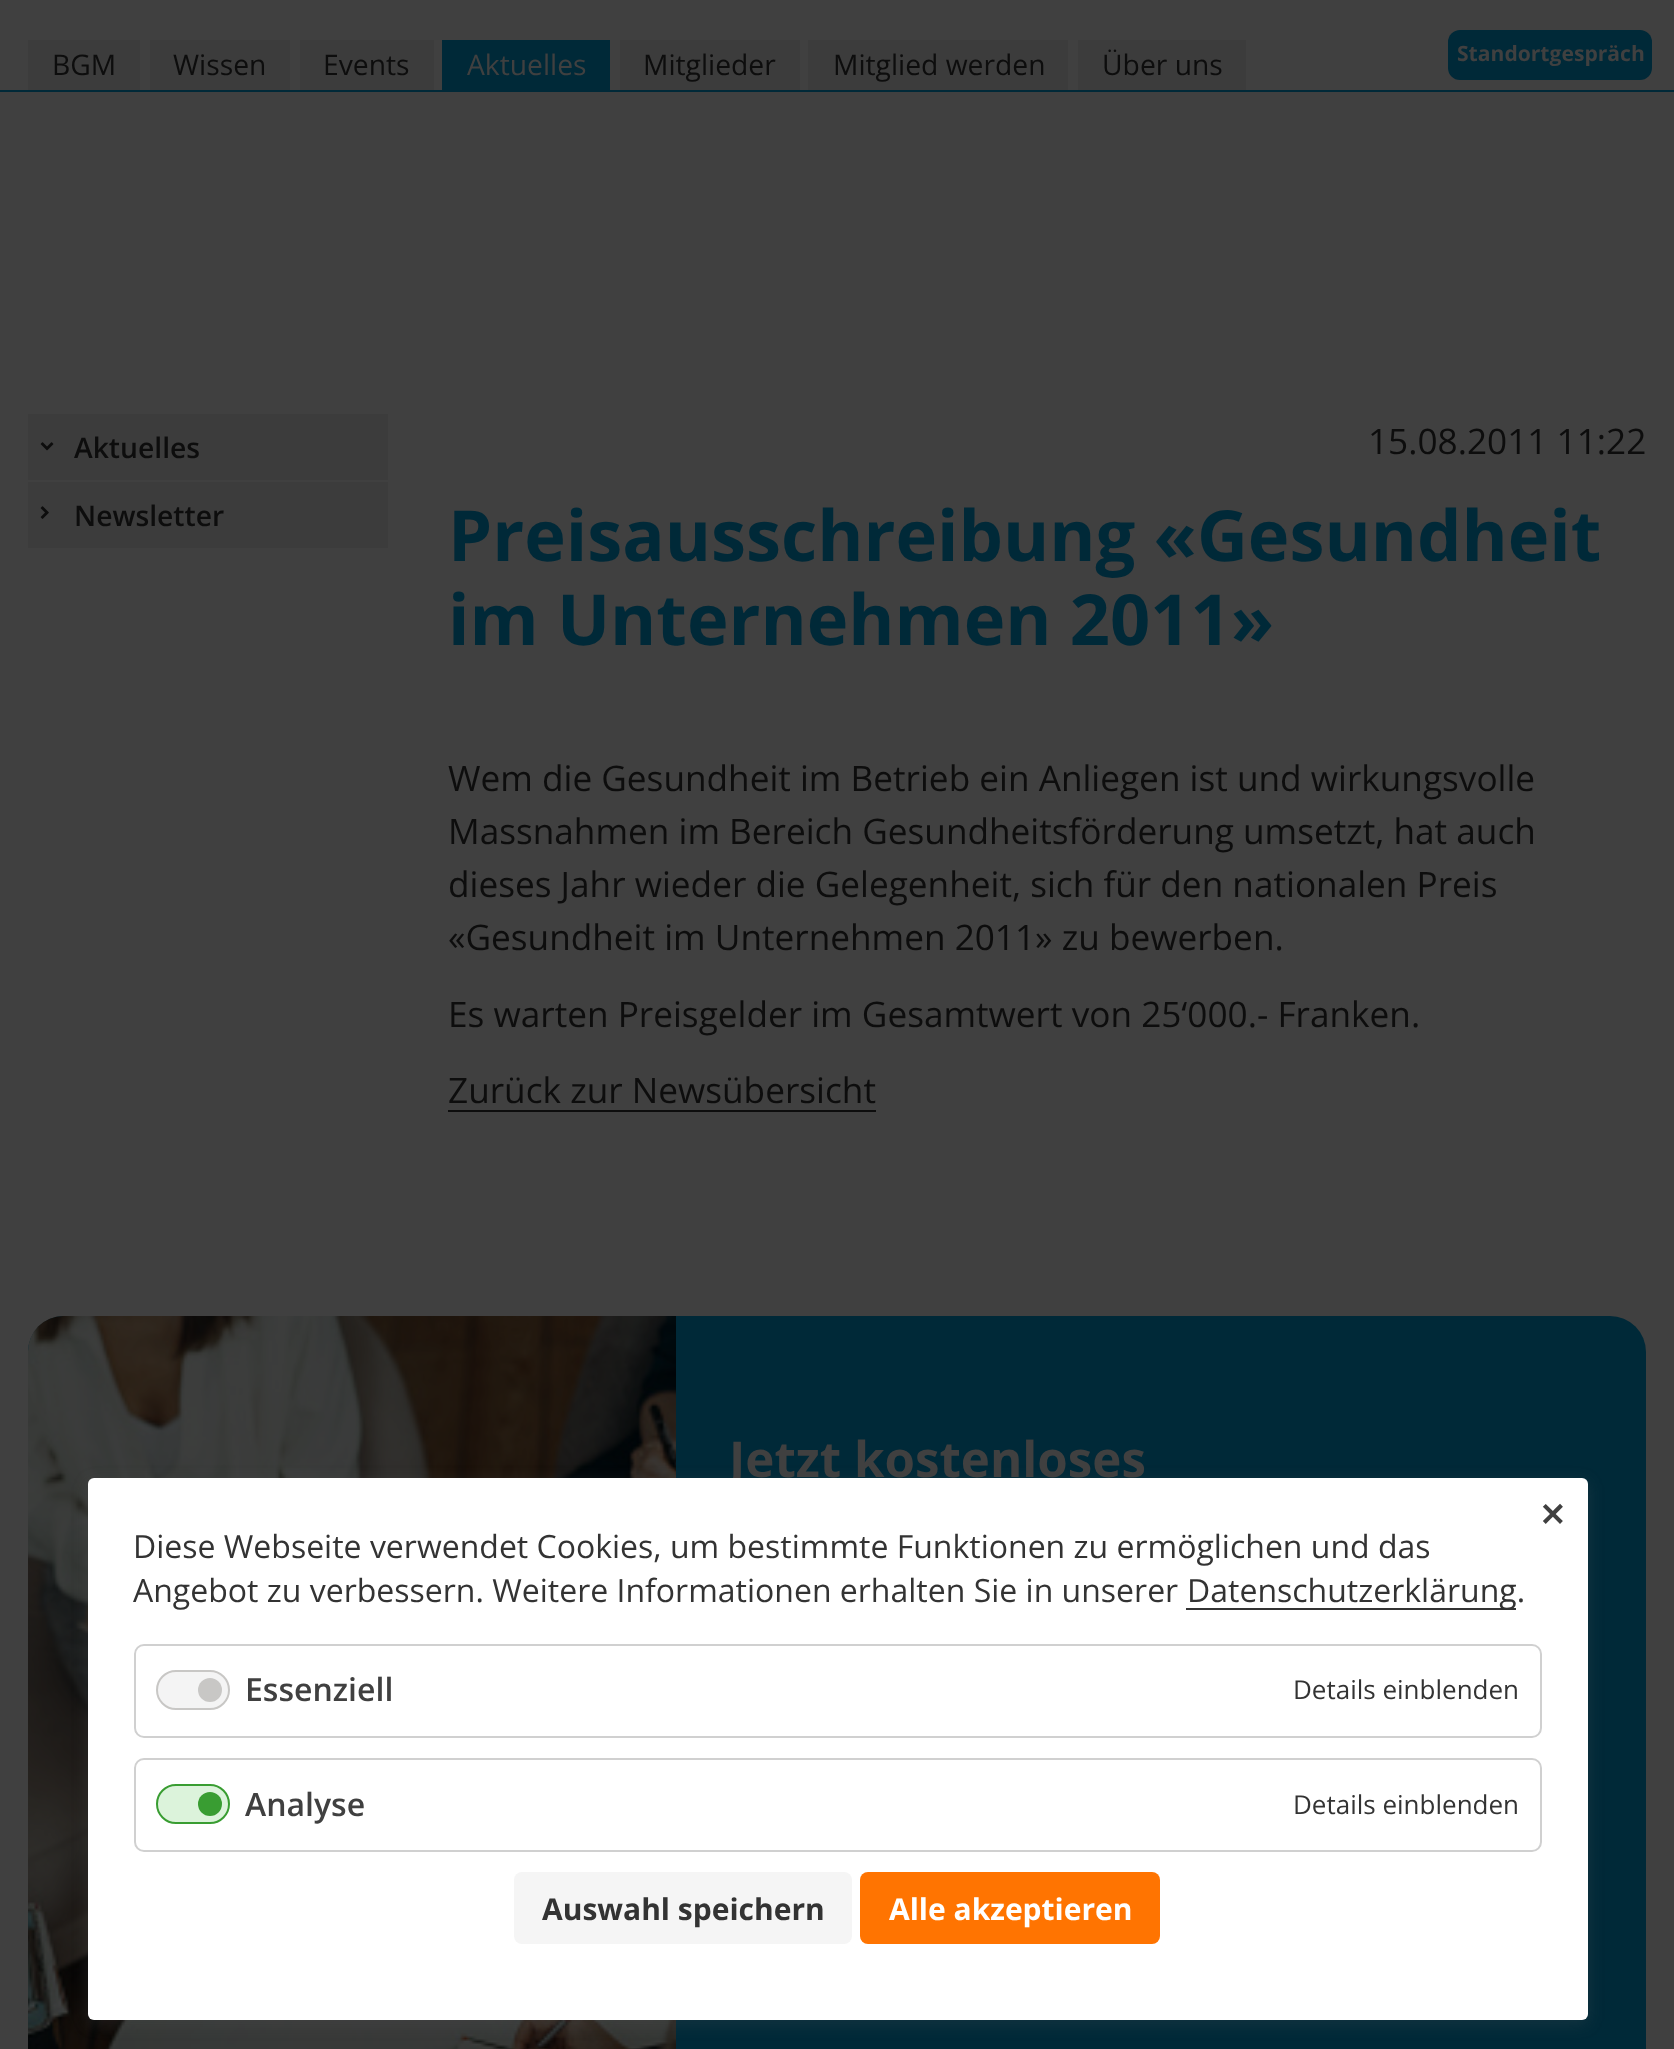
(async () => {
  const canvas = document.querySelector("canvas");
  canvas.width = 1674;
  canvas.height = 2049;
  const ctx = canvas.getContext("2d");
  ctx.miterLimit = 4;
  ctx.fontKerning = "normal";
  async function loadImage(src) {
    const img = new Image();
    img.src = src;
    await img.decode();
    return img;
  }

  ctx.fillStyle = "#404040";
  ctx.fillRect(0, 0, 1674, 2049);
  for (const [x, y, w, h, color] of [
    [0, 90, 1674, 2, "#002938"],
    [28, 40, 112, 50, "#3c3c3c"],
    [150, 40, 140, 50, "#3c3c3c"],
    [300, 40, 134, 50, "#3c3c3c"],
    [442, 40, 168, 50, "#002938"],
    [620, 40, 180, 50, "#3c3c3c"],
    [808, 40, 260, 50, "#3c3c3c"],
    [1078, 40, 168, 50, "#3c3c3c"],
  ]) {
    ctx.fillStyle = color;
    ctx.fillRect(x, y, w, h);
  }
  ctx.fillStyle = "#002938";
  ctx.beginPath();
  ctx.roundRect(1448, 30, 204, 50, 12);
  ctx.fill();
  ctx.fillStyle = "#3c3c3c";
  ctx.fillRect(28, 414, 360, 66);
  ctx.drawImage(await loadImage("img/1.png"), 40, 442, 14, 9);
  ctx.fillRect(28, 482, 360, 66);
  ctx.drawImage(await loadImage("img/2.png"), 40, 506, 9, 13);
  ctx.fillStyle = "#0d0d0d";
  ctx.fillRect(448, 1110, 428, 2);
  ctx.fillStyle = "#002938";
  ctx.beginPath();
  ctx.roundRect(28, 1316, 1618, 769, 36);
  ctx.fill();
  ctx.drawImage(await loadImage("img/3.png"), 28, 1316, 648, 733);
  ctx.fillStyle = "rgba(99, 99, 99, 0.2)";
  ctx.filter = "blur(8px)";
  ctx.beginPath();
  ctx.roundRect(88, 1482, 1500, 542, 6);
  ctx.fill();
  ctx.filter = "none";
  ctx.font = "28.25px Open Sans";
  ctx.fillStyle = "#0d0d0d";
  for (const [text, x, y] of [
    ["BGM", 52, 75],
    ["Wissen", 173, 75],
    ["Events", 323, 75],
  ]) {
    ctx.fillText(text, x, y);
  }
  ctx.fillStyle = "#404040";
  ctx.fillText("Aktuelles", 467, 75);
  ctx.fillStyle = "#0d0d0d";
  for (const [text, x, y] of [
    ["Mitglieder", 643, 75],
    ["Mitglied werden", 833, 75],
    ["Über uns", 1102, 75],
  ]) {
    ctx.fillText(text, x, y);
  }
  ctx.font = "bold 21.1px Open Sans";
  ctx.fillStyle = "#404040";
  ctx.fillText("Standortgespräch", 1457, 61);
  ctx.font = "600 28.25px Open Sans";
  ctx.fillStyle = "#0d0d0d";
  ctx.fillText("Aktuelles", 74, 458);
  ctx.fillText("Newsletter", 74, 526);
  ctx.font = "35.2px Open Sans";
  ctx.fillText("15.08.2011 11:22", 1368, 454);
  ctx.font = "bold 70.4px Open Sans";
  ctx.fillStyle = "#002938";
  ctx.fillText("Preisausschreibung «Gesundheit", 448, 561);
  ctx.fillText("im Unternehmen 2011»", 448, 645);
  ctx.font = "35.2px Open Sans";
  ctx.fillStyle = "#0d0d0d";
  for (const [text, x, y] of [
    ["Wem die Gesundheit im Betrieb ein Anliegen ist und wirkungsvolle", 448, 791],
    ["Massnahmen im Bereich Gesundheitsförderung umsetzt, hat auch", 448, 844],
    ["dieses Jahr wieder die Gelegenheit, sich für den nationalen Preis", 448, 897],
    ["«Gesundheit im Unternehmen 2011» zu bewerben.", 448, 950],
    ["Es warten Preisgelder im Gesamtwert von 25‘000.- Franken.", 448, 1027],
    ["Zurück zur Newsübersicht", 448, 1103],
  ]) {
    ctx.fillText(text, x, y);
  }
  ctx.font = "bold 49.25px Open Sans";
  ctx.fillStyle = "#404040";
  ctx.fillText("Jetzt kostenloses", 729, 1477);
  ctx.fillStyle = "#ffffff";
  ctx.beginPath();
  ctx.roundRect(88, 1478, 1500, 542, 6);
  ctx.fill();
  ctx.font = "bold 32px DejaVu Sans";
  ctx.fillStyle = "#404040";
  ctx.fillText("✕", 1539, 1526);
  ctx.font = "32px Open Sans";
  ctx.fillStyle = "#333333";
  ctx.fillText("Diese Webseite verwendet Cookies, um bestimmte Funktionen zu ermöglichen und das", 133, 1558);
  ctx.fillText("Angebot zu verbessern. Weitere Informationen erhalten Sie in unserer", 133, 1602);
  ctx.fillRect(1186, 1608, 330, 2);
  ctx.fillText("Datenschutzerklärung.", 1187, 1602);
  ctx.beginPath();
  ctx.roundRect(135, 1645, 1406, 92, 9);
  ctx.strokeStyle = "#d0d0d0";
  ctx.lineWidth = 2;
  ctx.stroke();
  ctx.fillStyle = "#f4f4f4";
  ctx.beginPath();
  ctx.roundRect(157, 1671, 72, 38, 19);
  ctx.fill();
  ctx.strokeStyle = "#c8c7c5";
  ctx.stroke();
  ctx.font = "600 32px Open Sans";
  ctx.fillStyle = "#404040";
  ctx.fillText("Essenziell", 245, 1701);
  ctx.fillStyle = "#c8c7c5";
  ctx.beginPath();
  ctx.arc(210, 1690, 12, 0, Math.PI * 2);
  ctx.fill();
  ctx.font = "26px Open Sans";
  ctx.fillStyle = "#333333";
  ctx.fillText("Details einblenden", 1293, 1699);
  ctx.beginPath();
  ctx.roundRect(135, 1759, 1406, 92, 9);
  ctx.strokeStyle = "#d0d0d0";
  ctx.stroke();
  ctx.fillStyle = "#dcf3db";
  ctx.beginPath();
  ctx.roundRect(157, 1785, 72, 38, 19);
  ctx.fill();
  ctx.strokeStyle = "#399d32";
  ctx.stroke();
  ctx.font = "600 32px Open Sans";
  ctx.fillStyle = "#404040";
  ctx.fillText("Analyse", 245, 1816);
  ctx.fillStyle = "#399d32";
  ctx.beginPath();
  ctx.arc(210, 1804, 12, 0, Math.PI * 2);
  ctx.fill();
  ctx.font = "26px Open Sans";
  ctx.fillStyle = "#333333";
  ctx.fillText("Details einblenden", 1293, 1814);
  ctx.fillStyle = "#f5f5f5";
  ctx.beginPath();
  ctx.roundRect(514, 1872, 338, 72, 8);
  ctx.fill();
  ctx.font = "bold 30px Open Sans";
  ctx.fillStyle = "#333333";
  ctx.fillText("Auswahl speichern", 542, 1920);
  ctx.fillStyle = "#ff7401";
  ctx.beginPath();
  ctx.roundRect(860, 1872, 300, 72, 8);
  ctx.fill();
  ctx.fillStyle = "#ffffff";
  ctx.fillText("Alle akzeptieren", 889, 1920);
})();
